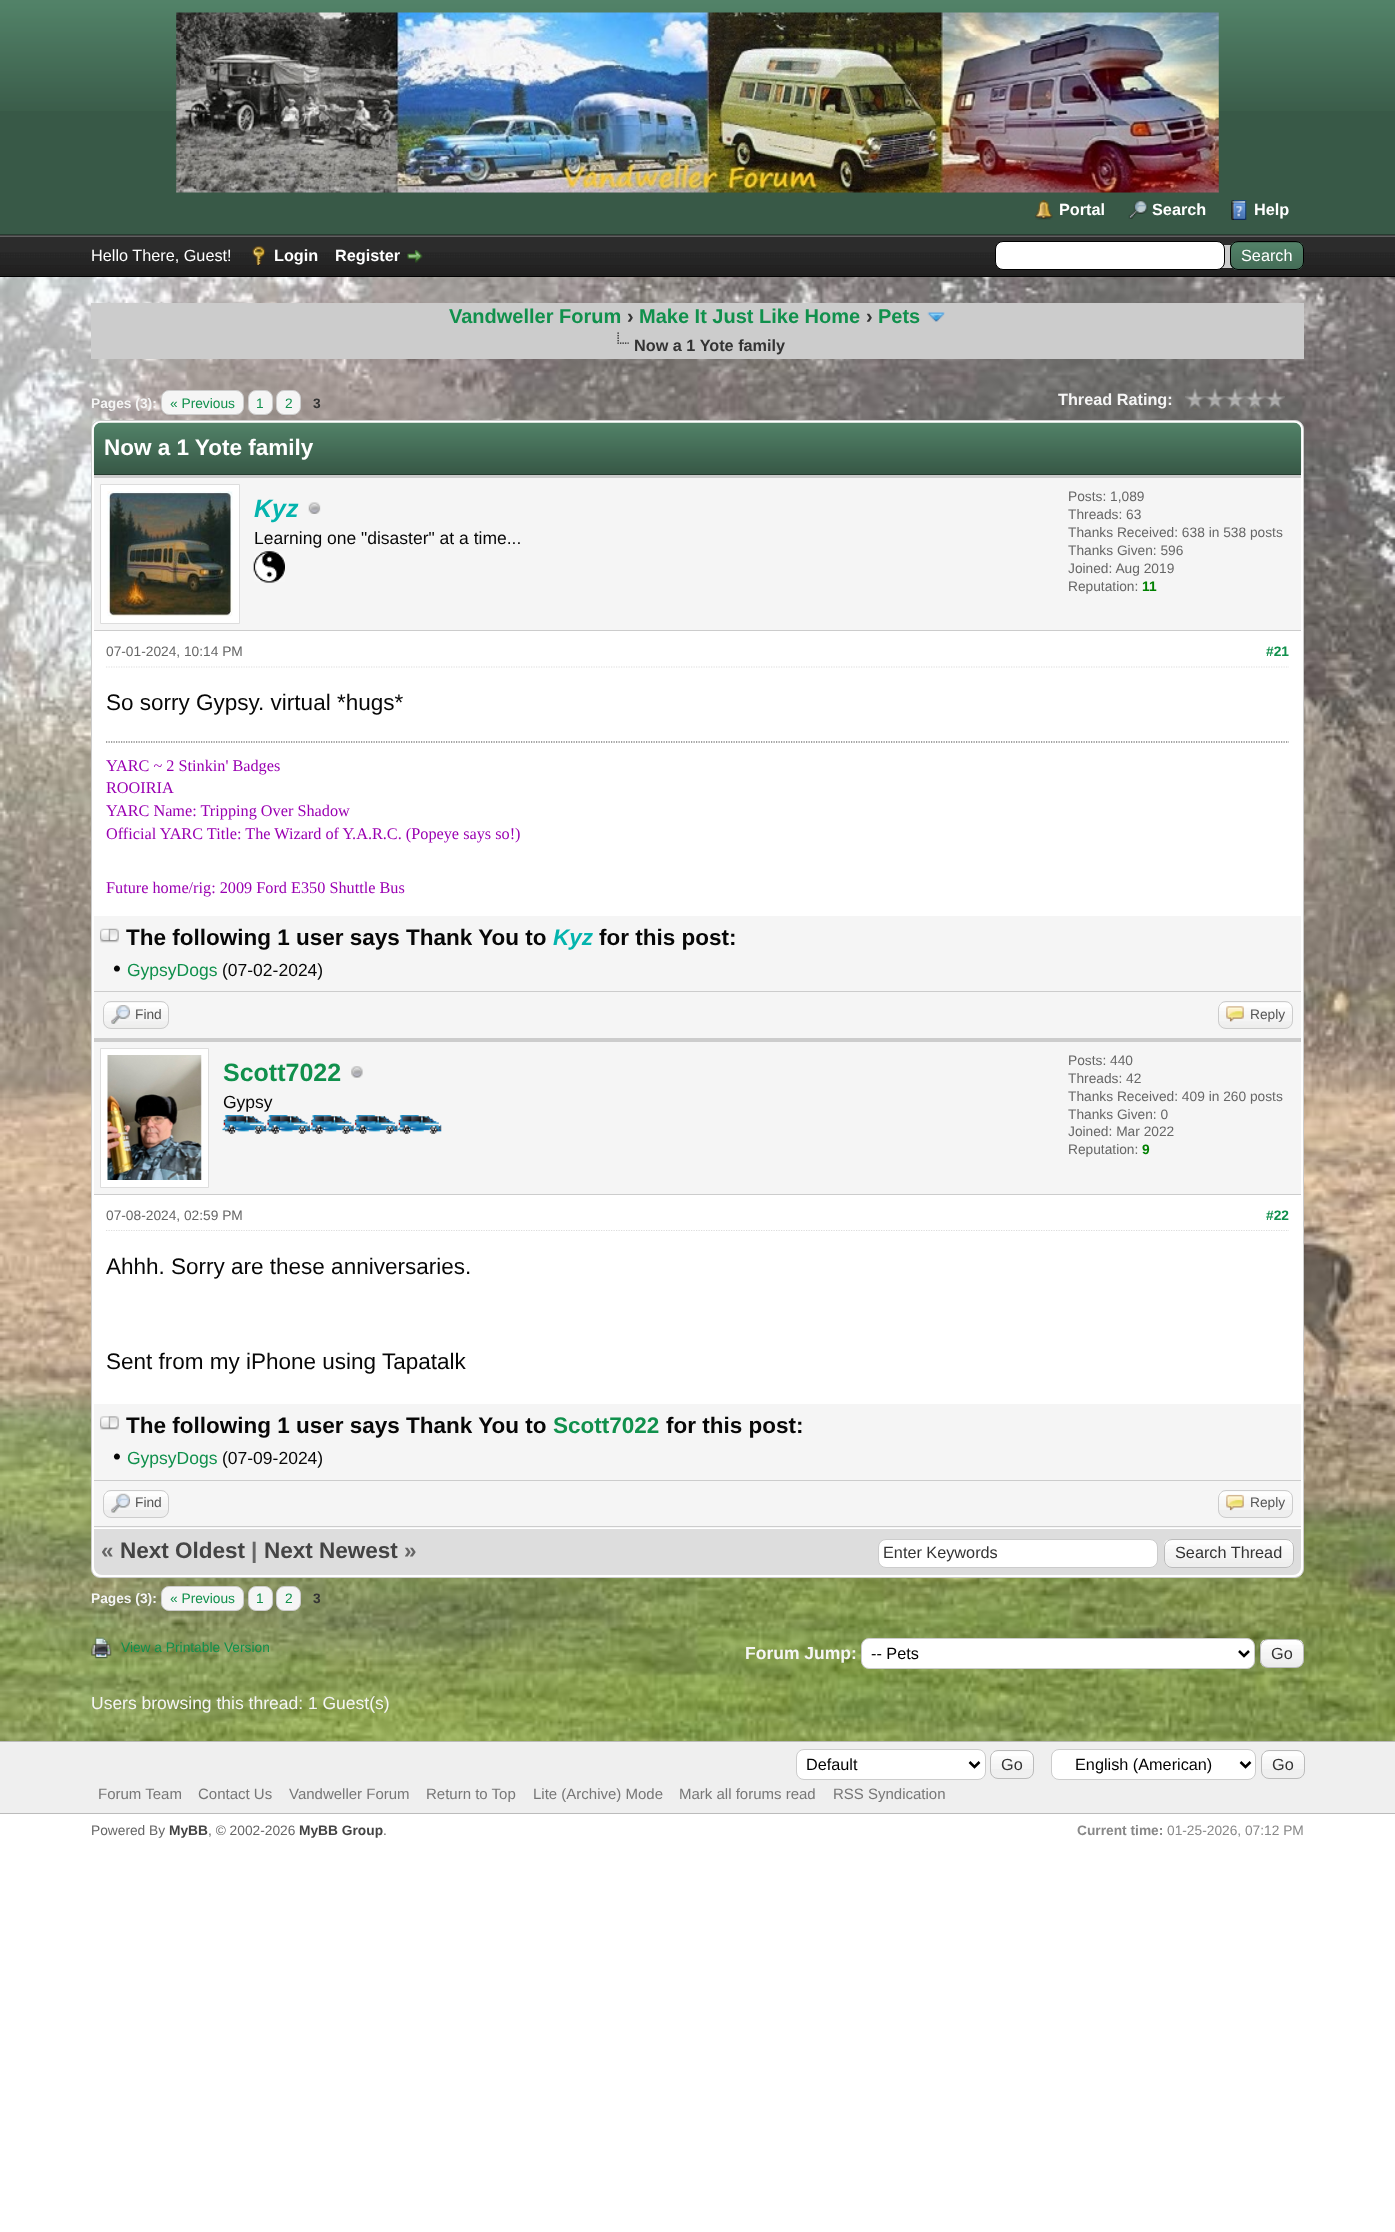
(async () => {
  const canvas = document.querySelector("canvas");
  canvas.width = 1395;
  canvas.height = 2232;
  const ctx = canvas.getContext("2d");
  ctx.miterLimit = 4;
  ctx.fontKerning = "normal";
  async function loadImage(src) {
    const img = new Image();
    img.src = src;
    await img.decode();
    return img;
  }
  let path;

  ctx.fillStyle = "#ffffff";
  ctx.fillRect(0, 0, 1395, 2232);
  ctx.fillStyle = "#385947";
  ctx.fillRect(0, 111, 1395, 123);
  ctx.drawImage(await loadImage("img/1.png"), 0, 0, 1395, 111);
  ctx.fillStyle = "#263c30";
  ctx.fillRect(0, 234, 1395, 1);
  ctx.drawImage(await loadImage("img/2.png"), 176, 12, 1043, 181);
  ctx.drawImage(await loadImage("img/3.png"), 1035, 200, 18, 20);
  ctx.drawImage(await loadImage("img/4.png"), 1128, 200, 20, 19);
  ctx.drawImage(await loadImage("img/5.png"), 1231, 200, 16, 20);
  ctx.drawImage(await loadImage("img/6.png"), 0, 236, 1395, 40);
  ctx.fillStyle = "#444444";
  ctx.fillRect(0, 235, 1395, 1);
  ctx.fillStyle = "#000000";
  ctx.fillRect(0, 276, 1395, 1);
  ctx.drawImage(await loadImage("img/7.png"), 252, 246, 14, 19);
  ctx.drawImage(await loadImage("img/8.png"), 407, 250, 16, 13);
  ctx.fillStyle = "#cccccc";
  ctx.beginPath();
  ctx.roundRect(995, 245, 309, 23, 8);
  ctx.fill();
  ctx.fillStyle = "#ffffff";
  ctx.beginPath();
  ctx.roundRect(995.5, 241.5, 229, 28, 7.5);
  ctx.fill();
  ctx.strokeStyle = "#000000";
  ctx.stroke();
  ctx.fillStyle = "#385947";
  ctx.beginPath();
  ctx.roundRect(1230, 241, 74, 29, 8);
  ctx.fill();
  ctx.drawImage(await loadImage("img/9.png"), 1230, 242, 74, 28);
  ctx.beginPath();
  ctx.roundRect(1230.5, 241.5, 73, 28, 7.5);
  ctx.stroke();
  ctx.drawImage(await loadImage("img/10.png"), 0, 277, 1395, 1464);
  ctx.fillStyle = "#cccccc";
  ctx.fillRect(91, 303, 1213, 56);
  ctx.drawImage(await loadImage("img/11.png"), 927, 312, 18, 10);
  ctx.drawImage(await loadImage("img/12.png"), 617, 332, 12, 12);
  ctx.fillStyle = "#f5f5f5";
  ctx.beginPath();
  ctx.roundRect(161.5, 390.5, 82, 24, 7.5);
  ctx.fill();
  ctx.strokeStyle = "#cccccc";
  ctx.stroke();
  ctx.beginPath();
  ctx.roundRect(248.5, 390.5, 24, 24, 7.5);
  ctx.fill();
  ctx.stroke();
  ctx.beginPath();
  ctx.roundRect(276.5, 390.5, 24, 24, 7.5);
  ctx.fill();
  ctx.stroke();
  ctx.drawImage(await loadImage("img/13.png"), 1185, 388, 100, 21);
  ctx.fillStyle = "#ffffff";
  ctx.beginPath();
  ctx.roundRect(91.5, 420.5, 1212, 1157, 8.5);
  ctx.fill();
  ctx.stroke();
  ctx.fillStyle = "#385947";
  ctx.beginPath();
  ctx.roundRect(94, 423, 1207, 52, [8, 8, 0, 0]);
  ctx.fill();
  ctx.drawImage(await loadImage("img/14.png"), 93, 422, 1209, 51);
  for (const [x, y, w, h, color] of [
    [94, 474, 1207, 1, "#263c30"],
    [94, 478, 1207, 152, "#f5f5f5"],
    [94, 475, 1207, 3, "#cccccc"],
    [94, 630, 1207, 1, "#cccccc"],
  ]) {
    ctx.fillStyle = color;
    ctx.fillRect(x, y, w, h);
  }
  ctx.fillStyle = "#ffffff";
  ctx.beginPath();
  ctx.rect(100.5, 484.5, 139, 139);
  ctx.fill();
  ctx.strokeStyle = "#dddddd";
  ctx.stroke();
  ctx.drawImage(await loadImage("img/15.png"), 107, 491, 126, 126);
  ctx.drawImage(await loadImage("img/16.png"), 308, 502, 13, 12);
  ctx.drawImage(await loadImage("img/17.png"), 253, 551, 32, 32);
  path = new Path2D("M106 667H1289");
  ctx.lineWidth = 1.2;
  ctx.setLineDash([1.25, 1.25]);
  ctx.stroke(path);
  path = new Path2D("M106 742H1289");
  ctx.strokeStyle = "#444444";
  ctx.stroke(path);
  ctx.fillStyle = "#f5f5f5";
  ctx.fillRect(94, 916, 1207, 122);
  ctx.fillStyle = "#cccccc";
  ctx.fillRect(94, 991, 1207, 1);
  ctx.drawImage(await loadImage("img/18.png"), 100, 928, 19, 15);
  ctx.fillRect(94, 1038, 1207, 4);
  ctx.fillStyle = "#eeeeee";
  ctx.beginPath();
  ctx.roundRect(103, 1001, 66, 28, 8);
  ctx.fill();
  ctx.drawImage(await loadImage("img/19.png"), 103, 1002, 66, 26);
  ctx.beginPath();
  ctx.roundRect(103.5, 1001.5, 65, 27, 7.5);
  ctx.strokeStyle = "#cccccc";
  ctx.lineWidth = 1;
  ctx.setLineDash([]);
  ctx.stroke();
  ctx.drawImage(await loadImage("img/20.png"), 111, 1005, 19, 19);
  ctx.beginPath();
  ctx.roundRect(1218, 1001, 75, 28, 8);
  ctx.fill();
  ctx.drawImage(await loadImage("img/21.png"), 1218, 1002, 74, 26);
  ctx.beginPath();
  ctx.roundRect(1218.5, 1001.5, 74, 27, 7.5);
  ctx.stroke();
  ctx.drawImage(await loadImage("img/22.png"), 1226, 1006, 18, 16);
  ctx.fillStyle = "#f5f5f5";
  ctx.fillRect(94, 1042, 1207, 152);
  ctx.fillStyle = "#cccccc";
  ctx.fillRect(94, 1194, 1207, 1);
  ctx.fillStyle = "#ffffff";
  ctx.beginPath();
  ctx.rect(100.5, 1048.5, 108, 139);
  ctx.fill();
  ctx.strokeStyle = "#dddddd";
  ctx.stroke();
  ctx.drawImage(await loadImage("img/23.png"), 107, 1055, 95, 125);
  ctx.drawImage(await loadImage("img/24.png"), 351, 1066, 12, 12);
  ctx.drawImage(await loadImage("img/25.png"), 222, 1115, 45, 19);
  ctx.drawImage(await loadImage("img/26.png"), 266, 1115, 44, 19);
  ctx.drawImage(await loadImage("img/27.png"), 310, 1115, 44, 19);
  ctx.drawImage(await loadImage("img/28.png"), 353, 1115, 45, 19);
  ctx.drawImage(await loadImage("img/29.png"), 397, 1115, 45, 19);
  path = new Path2D("M106 1230.5H1289");
  ctx.lineWidth = 1.2;
  ctx.setLineDash([1.25, 1.25]);
  ctx.stroke(path);
  ctx.fillStyle = "#f5f5f5";
  ctx.fillRect(94, 1404, 1207, 76);
  ctx.fillStyle = "#cccccc";
  ctx.fillRect(94, 1480, 1207, 1);
  ctx.drawImage(await loadImage("img/30.png"), 100, 1416, 19, 14);
  ctx.fillStyle = "#f5f5f5";
  ctx.fillRect(94, 1481, 1207, 47);
  ctx.fillStyle = "#cccccc";
  ctx.fillRect(94, 1526, 1207, 1);
  ctx.fillStyle = "#eeeeee";
  ctx.beginPath();
  ctx.roundRect(103, 1490, 66, 28, 8);
  ctx.fill();
  ctx.drawImage(await loadImage("img/31.png"), 103, 1491, 66, 19);
  ctx.beginPath();
  ctx.roundRect(103.5, 1490.5, 65, 27, 7.5);
  ctx.strokeStyle = "#cccccc";
  ctx.lineWidth = 1;
  ctx.setLineDash([]);
  ctx.stroke();
  ctx.drawImage(await loadImage("img/32.png"), 111, 1493, 19, 20);
  ctx.beginPath();
  ctx.roundRect(1218, 1490, 75, 28, 8);
  ctx.fill();
  ctx.drawImage(await loadImage("img/33.png"), 1218, 1491, 74, 19);
  ctx.beginPath();
  ctx.roundRect(1218.5, 1490.5, 74, 27, 7.5);
  ctx.stroke();
  ctx.drawImage(await loadImage("img/34.png"), 1226, 1494, 18, 17);
  ctx.fillStyle = "#dddddd";
  ctx.beginPath();
  ctx.roundRect(94, 1528, 1207, 47, [0, 0, 8, 8]);
  ctx.fill();
  ctx.fillStyle = "#ffffff";
  ctx.fillRect(94, 1528, 1207, 1);
  ctx.beginPath();
  ctx.roundRect(878.5, 1539.5, 279, 28, 7.5);
  ctx.fill();
  ctx.stroke();
  ctx.fillStyle = "#eeeeee";
  ctx.beginPath();
  ctx.roundRect(1164, 1539, 130, 29, 8);
  ctx.fill();
  ctx.drawImage(await loadImage("img/35.png"), 1164, 1540, 130, 24);
  ctx.beginPath();
  ctx.roundRect(1164.5, 1539.5, 129, 28, 7.5);
  ctx.strokeStyle = "#bbbbbb";
  ctx.stroke();
  ctx.fillStyle = "#f5f5f5";
  ctx.beginPath();
  ctx.roundRect(161.5, 1586.5, 82, 24, 7.5);
  ctx.fill();
  ctx.strokeStyle = "#cccccc";
  ctx.stroke();
  ctx.beginPath();
  ctx.roundRect(248.5, 1586.5, 24, 24, 7.5);
  ctx.fill();
  ctx.stroke();
  ctx.beginPath();
  ctx.roundRect(276.5, 1586.5, 24, 24, 7.5);
  ctx.fill();
  ctx.stroke();
  ctx.drawImage(await loadImage("img/36.png"), 91, 1637, 21, 22);
  ctx.fillStyle = "#ffffff";
  ctx.beginPath();
  ctx.roundRect(861.5, 1638.5, 393, 30, 7.5);
  ctx.fill();
  ctx.stroke();
  path = new Path2D("M1239 1651L1244 1656L1249 1651");
  ctx.strokeStyle = "#000000";
  ctx.lineWidth = 2.5;
  ctx.stroke(path);
  ctx.drawImage(await loadImage("img/37.png"), 1260, 1640, 44, 28);
  ctx.beginPath();
  ctx.roundRect(1260.5, 1639.5, 43, 28, 7.5);
  ctx.strokeStyle = "#bbbbbb";
  ctx.lineWidth = 1;
  ctx.stroke();
  for (const [x, y, w, h, color] of [
    [0, 1742, 1395, 71, "#efefef"],
    [0, 1741, 1395, 1, "#bbbbbb"],
    [0, 1813, 1395, 1, "#bbbbbb"],
  ]) {
    ctx.fillStyle = color;
    ctx.fillRect(x, y, w, h);
  }
  ctx.fillStyle = "#ffffff";
  ctx.beginPath();
  ctx.roundRect(796.5, 1749.5, 189, 30, 7.5);
  ctx.fill();
  ctx.strokeStyle = "#cccccc";
  ctx.stroke();
  path = new Path2D("M969.5 1762L974.5 1767L979.5 1762");
  ctx.strokeStyle = "#000000";
  ctx.lineWidth = 2.5;
  ctx.stroke(path);
  ctx.drawImage(await loadImage("img/38.png"), 990, 1751, 44, 18);
  ctx.beginPath();
  ctx.roundRect(990.5, 1750.5, 43, 28, 7.5);
  ctx.strokeStyle = "#bbbbbb";
  ctx.lineWidth = 1;
  ctx.stroke();
  ctx.beginPath();
  ctx.roundRect(1051.5, 1749.5, 204, 30, 7.5);
  ctx.fill();
  ctx.strokeStyle = "#cccccc";
  ctx.stroke();
  path = new Path2D("M1240.5 1762L1245.5 1767L1250.5 1762");
  ctx.strokeStyle = "#000000";
  ctx.lineWidth = 2.5;
  ctx.stroke(path);
  ctx.drawImage(await loadImage("img/39.png"), 1261, 1751, 44, 18);
  ctx.beginPath();
  ctx.roundRect(1261.5, 1750.5, 43, 28, 7.5);
  ctx.strokeStyle = "#bbbbbb";
  ctx.lineWidth = 1;
  ctx.stroke();
  ctx.font = "bold 16.25px Liberation Sans";
  for (const [text, x, y] of [
    ["Portal", 1059, 215],
    ["Search", 1152, 215],
    ["Help", 1254, 215],
  ]) {
    ctx.fillText(text, x, y);
  }
  ctx.font = "16.25px Liberation Sans";
  ctx.fillText("Hello There, Guest!", 91, 261);
  ctx.font = "bold 16.25px Liberation Sans";
  ctx.fillText("Login", 274, 261);
  ctx.fillText("Register", 335, 261);
  ctx.font = "16.25px Liberation Sans";
  ctx.fillText("Search", 1241, 261);
  ctx.font = "bold 20px Liberation Sans";
  ctx.fillStyle = "#10904c";
  ctx.fillText("Vandweller Forum", 449, 323);
  ctx.fillStyle = "#333333";
  ctx.fillText("›", 627, 323);
  ctx.fillStyle = "#10904c";
  ctx.fillText("Make It Just Like Home", 639, 323);
  ctx.fillStyle = "#333333";
  ctx.fillText("›", 866, 323);
  ctx.fillStyle = "#10904c";
  ctx.fillText("Pets", 878, 323);
  ctx.font = "bold 16.25px Liberation Sans";
  ctx.fillStyle = "#333333";
  ctx.fillText("Now a 1 Yote family", 634, 351);
  ctx.font = "bold 13.75px Liberation Sans";
  ctx.fillStyle = "#f5f5f5";
  ctx.fillText("Pages (3):", 91, 408);
  ctx.font = "13.75px Liberation Sans";
  ctx.fillStyle = "#10904c";
  for (const [text, x, y] of [
    ["« Previous", 170, 408],
    ["1", 256, 408],
    ["2", 285, 408],
  ]) {
    ctx.fillText(text, x, y);
  }
  ctx.font = "bold 13.75px Liberation Sans";
  ctx.fillStyle = "#333333";
  ctx.fillText("3", 313, 408);
  ctx.font = "bold 16.25px Liberation Sans";
  ctx.fillStyle = "#f5f5f5";
  ctx.fillText("Thread Rating:", 1058, 405);
  ctx.font = "bold 22.5px Liberation Sans";
  ctx.fillStyle = "#ffffff";
  ctx.fillText("Now a 1 Yote family", 104, 455);
  ctx.font = "italic bold 25px Liberation Sans";
  ctx.fillStyle = "#04b4ae";
  ctx.fillText("Kyz", 254, 517);
  ctx.font = "17.5px Liberation Sans";
  ctx.fillStyle = "#070707";
  ctx.fillText("Learning one \"disaster\" at a time...", 254, 544);
  ctx.font = "13.75px Liberation Sans";
  ctx.fillStyle = "#666666";
  for (const [text, x, y] of [
    ["Posts: 1,089", 1068, 501],
    ["Threads: 63", 1068, 519],
    ["Thanks Received: 638 in 538 posts", 1068, 537],
    ["Thanks Given: 596", 1068, 555],
    ["Joined: Aug 2019", 1068, 573],
    ["Reputation:", 1068, 591],
  ]) {
    ctx.fillText(text, x, y);
  }
  ctx.font = "bold 13.75px Liberation Sans";
  ctx.fillStyle = "#008000";
  ctx.fillText("11", 1142, 591);
  ctx.font = "13.75px Liberation Sans";
  ctx.fillStyle = "#666666";
  ctx.fillText("07-01-2024, 10:14 PM", 106, 656);
  ctx.font = "bold 13.75px Liberation Sans";
  ctx.fillStyle = "#10904c";
  ctx.fillText("#21", 1266, 656);
  ctx.font = "22.5px Liberation Sans";
  ctx.fillStyle = "#070707";
  ctx.fillText("So sorry Gypsy. virtual *hugs*", 106, 710);
  ctx.font = "16.25px Liberation Serif";
  ctx.fillStyle = "#9a00b2";
  for (const [text, x, y] of [
    ["YARC ~ 2 Stinkin' Badges", 106, 771],
    ["ROOIRIA", 106, 793],
    ["YARC Name: Tripping Over Shadow", 106, 816],
    ["Official YARC Title: The Wizard of Y.A.R.C. (Popeye says so!)", 106, 839],
    ["Future home/rig: 2009 Ford E350 Shuttle Bus", 106, 893],
  ]) {
    ctx.fillText(text, x, y);
  }
  ctx.font = "bold 22.5px Liberation Sans";
  ctx.fillStyle = "#070707";
  ctx.fillText("The following 1 user says Thank You to", 126, 945);
  ctx.font = "italic bold 22.5px Liberation Sans";
  ctx.fillStyle = "#04b4ae";
  ctx.fillText("Kyz", 553, 945);
  ctx.font = "bold 22.5px Liberation Sans";
  ctx.fillStyle = "#070707";
  ctx.fillText("for this post:", 599, 945);
  ctx.font = "22.5px Liberation Sans";
  ctx.fillText("•", 113, 976);
  ctx.font = "17.5px Liberation Sans";
  ctx.fillStyle = "#10904c";
  ctx.fillText("GypsyDogs", 127, 976);
  ctx.fillStyle = "#070707";
  ctx.fillText("(07-02-2024)", 222, 976);
  ctx.font = "13.75px Liberation Sans";
  ctx.fillStyle = "#555555";
  ctx.fillText("Find", 135, 1019);
  ctx.fillText("Reply", 1250, 1019);
  ctx.font = "bold 25px Liberation Sans";
  ctx.fillStyle = "#10904c";
  ctx.fillText("Scott7022", 223, 1081);
  ctx.font = "17.5px Liberation Sans";
  ctx.fillStyle = "#070707";
  ctx.fillText("Gypsy", 223, 1108);
  ctx.font = "13.75px Liberation Sans";
  ctx.fillStyle = "#666666";
  for (const [text, x, y] of [
    ["Posts: 440", 1068, 1065],
    ["Threads: 42", 1068, 1083],
    ["Thanks Received: 409 in 260 posts", 1068, 1101],
    ["Thanks Given: 0", 1068, 1119],
    ["Joined: Mar 2022", 1068, 1136],
    ["Reputation:", 1068, 1154],
  ]) {
    ctx.fillText(text, x, y);
  }
  ctx.font = "bold 13.75px Liberation Sans";
  ctx.fillStyle = "#008000";
  ctx.fillText("9", 1142, 1154);
  ctx.font = "13.75px Liberation Sans";
  ctx.fillStyle = "#666666";
  ctx.fillText("07-08-2024, 02:59 PM", 106, 1220);
  ctx.font = "bold 13.75px Liberation Sans";
  ctx.fillStyle = "#10904c";
  ctx.fillText("#22", 1266, 1220);
  ctx.font = "22.5px Liberation Sans";
  ctx.fillStyle = "#070707";
  ctx.fillText("Ahhh. Sorry are these anniversaries.", 106, 1274);
  ctx.fillText("Sent from my iPhone using Tapatalk", 106, 1369);
  ctx.font = "bold 22.5px Liberation Sans";
  ctx.fillText("The following 1 user says Thank You to", 126, 1433);
  ctx.fillStyle = "#10904c";
  ctx.fillText("Scott7022", 553, 1433);
  ctx.fillStyle = "#070707";
  ctx.fillText("for this post:", 666, 1433);
  ctx.font = "22.5px Liberation Sans";
  ctx.fillText("•", 113, 1464);
  ctx.font = "17.5px Liberation Sans";
  ctx.fillStyle = "#10904c";
  ctx.fillText("GypsyDogs", 127, 1464);
  ctx.fillStyle = "#070707";
  ctx.fillText("(07-09-2024)", 222, 1464);
  ctx.font = "13.75px Liberation Sans";
  ctx.fillStyle = "#555555";
  ctx.fillText("Find", 135, 1507);
  ctx.fillText("Reply", 1250, 1507);
  ctx.font = "bold 22.5px Liberation Sans";
  ctx.fillStyle = "#666666";
  ctx.fillText("«", 101, 1558);
  ctx.fillStyle = "#444444";
  ctx.fillText("Next Oldest", 120, 1558);
  ctx.fillStyle = "#666666";
  ctx.fillText("|", 251, 1558);
  ctx.fillStyle = "#444444";
  ctx.fillText("Next Newest", 264, 1558);
  ctx.fillStyle = "#666666";
  ctx.fillText("»", 404, 1558);
  ctx.font = "16.25px Liberation Sans";
  ctx.fillStyle = "#333333";
  ctx.fillText("Enter Keywords", 883, 1558);
  ctx.fillText("Search Thread", 1175, 1558);
  ctx.font = "bold 13.75px Liberation Sans";
  ctx.fillStyle = "#f5f5f5";
  ctx.fillText("Pages (3):", 91, 1603);
  ctx.font = "13.75px Liberation Sans";
  ctx.fillStyle = "#10904c";
  for (const [text, x, y] of [
    ["« Previous", 170, 1603],
    ["1", 256, 1603],
    ["2", 285, 1603],
  ]) {
    ctx.fillText(text, x, y);
  }
  ctx.font = "bold 13.75px Liberation Sans";
  ctx.fillStyle = "#333333";
  ctx.fillText("3", 313, 1603);
  ctx.font = "13.75px Liberation Sans";
  ctx.fillStyle = "#10904c";
  ctx.fillText("View a Printable Version", 121, 1652);
  ctx.font = "bold 17.5px Liberation Sans";
  ctx.fillStyle = "#f5f5f5";
  ctx.fillText("Forum Jump:", 745, 1659);
  ctx.font = "16.25px Liberation Sans";
  ctx.fillStyle = "#000000";
  ctx.fillText("-- Pets", 871, 1659);
  ctx.fillStyle = "#333333";
  ctx.fillText("Go", 1271, 1659);
  ctx.font = "17.5px Liberation Sans";
  ctx.fillStyle = "#f5f5f5";
  ctx.fillText("Users browsing this thread: 1 Guest(s)", 91, 1709);
  ctx.font = "16.25px Liberation Sans";
  ctx.fillStyle = "#000000";
  ctx.fillText("Default", 806, 1770);
  ctx.fillStyle = "#333333";
  ctx.fillText("Go", 1001, 1770);
  ctx.fillStyle = "#000000";
  ctx.fillText("English (American)", 1075, 1770);
  ctx.fillStyle = "#333333";
  ctx.fillText("Go", 1272, 1770);
  ctx.font = "15px Liberation Sans";
  ctx.fillStyle = "#777777";
  for (const [text, x, y] of [
    ["Forum Team", 98, 1799],
    ["Contact Us", 198, 1799],
    ["Vandweller Forum", 289, 1799],
    ["Return to Top", 426, 1799],
    ["Lite (Archive) Mode", 533, 1799],
    ["Mark all forums read", 679, 1799],
    ["RSS Syndication", 833, 1799],
  ]) {
    ctx.fillText(text, x, y);
  }
  ctx.font = "13.75px Liberation Sans";
  ctx.fillStyle = "#666666";
  ctx.fillText("Powered By", 91, 1835);
  ctx.font = "bold 13.75px Liberation Sans";
  ctx.fillStyle = "#444444";
  ctx.fillText("MyBB", 169, 1835);
  ctx.font = "13.75px Liberation Sans";
  ctx.fillStyle = "#666666";
  ctx.fillText(", © 2002-2026", 208, 1835);
  ctx.font = "bold 13.75px Liberation Sans";
  ctx.fillStyle = "#444444";
  ctx.fillText("MyBB Group", 299, 1835);
  ctx.font = "13.75px Liberation Sans";
  ctx.fillStyle = "#666666";
  ctx.fillText(".", 383, 1835);
  ctx.font = "bold 13.75px Liberation Sans";
  ctx.fillStyle = "#888888";
  ctx.fillText("Current time:", 1077, 1835);
  ctx.font = "13.75px Liberation Sans";
  ctx.fillText("01-25-2026, 07:12 PM", 1167, 1835);
})();
